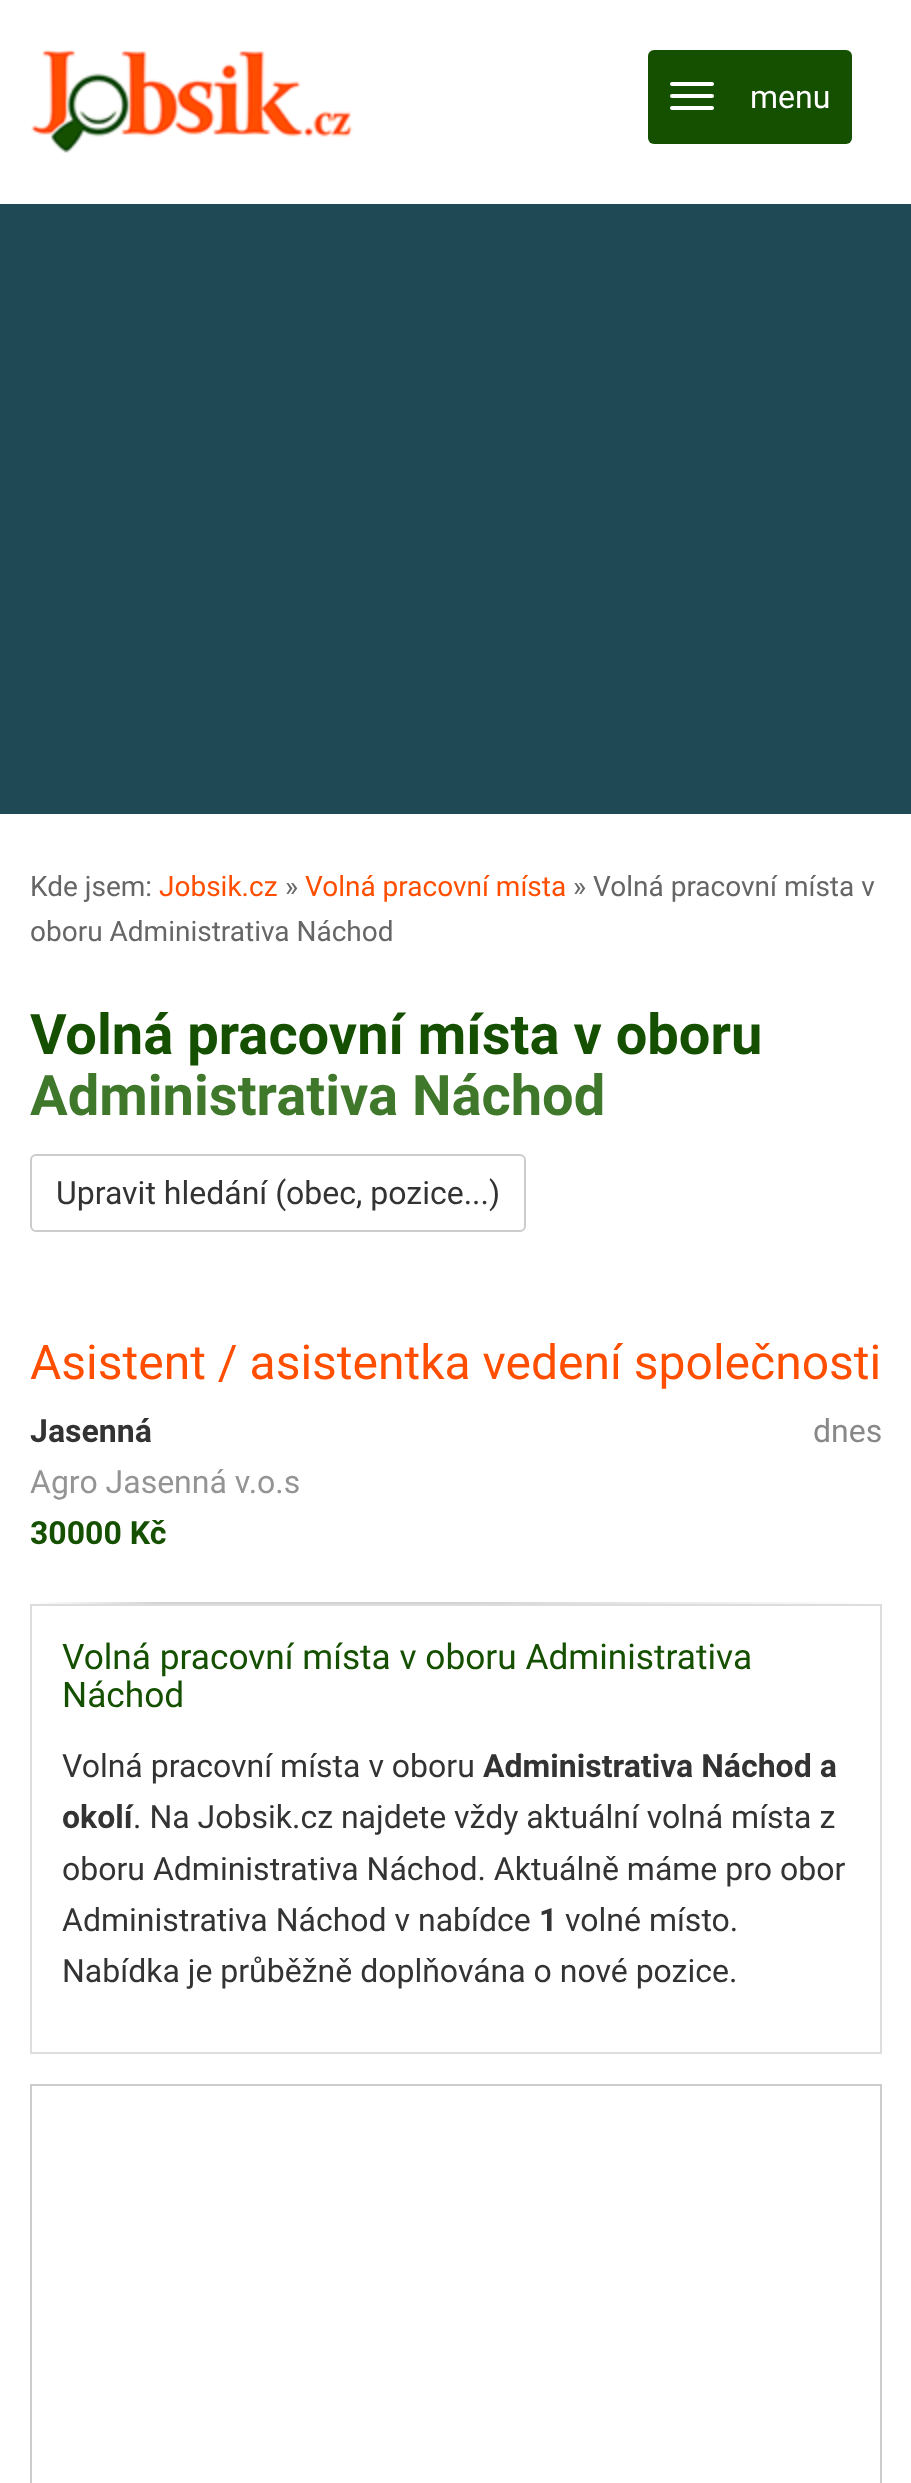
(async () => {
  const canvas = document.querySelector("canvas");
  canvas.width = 911;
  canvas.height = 2483;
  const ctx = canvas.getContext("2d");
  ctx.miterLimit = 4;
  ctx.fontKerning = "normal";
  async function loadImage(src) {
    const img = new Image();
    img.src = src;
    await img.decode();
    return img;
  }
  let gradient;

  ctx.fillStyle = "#ffffff";
  ctx.fillRect(0, 0, 911, 2483);
  ctx.drawImage(await loadImage("img/1.png"), 31, 50, 322, 103);
  ctx.fillStyle = "#155000";
  ctx.beginPath();
  ctx.roundRect(648, 50, 204, 94, 6);
  ctx.fill();
  ctx.fillStyle = "#ffffff";
  ctx.beginPath();
  ctx.roundRect(670, 82, 44, 4, 2);
  ctx.fill();
  ctx.beginPath();
  ctx.roundRect(670, 94, 44, 4, 2);
  ctx.fill();
  ctx.beginPath();
  ctx.roundRect(670, 106, 44, 4, 2);
  ctx.fill();
  ctx.fillStyle = "#204956";
  ctx.fillRect(0, 204, 911, 610);
  ctx.beginPath();
  ctx.roundRect(31, 1155, 494, 76, 5);
  ctx.strokeStyle = "#cccccc";
  ctx.lineWidth = 2;
  ctx.stroke();
  gradient = ctx.createLinearGradient(30, 1603, 882, 1603);
  gradient.addColorStop(0, "#ffffff");
  gradient.addColorStop(0.15, "#d3d3d3");
  gradient.addColorStop(0.5, "#d3d3d3");
  gradient.addColorStop(1, "#ffffff");
  ctx.fillStyle = gradient;
  ctx.fillRect(30, 1602, 828, 2);
  ctx.strokeStyle = "#dddddd";
  ctx.strokeRect(31, 1605, 850, 448);
  ctx.strokeStyle = "#cccccc";
  ctx.strokeRect(31, 2085, 850, 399);
  ctx.font = "32px Roboto";
  ctx.fillStyle = "#ffffff";
  ctx.fillText("menu", 750, 108);
  ctx.font = "28px Roboto";
  ctx.fillStyle = "#666666";
  ctx.fillText("Kde jsem:", 30, 896);
  ctx.fillStyle = "#ff4e00";
  ctx.fillText("Jobsik.cz", 159, 896);
  ctx.fillStyle = "#666666";
  ctx.fillText("»", 285, 896);
  ctx.fillStyle = "#ff4e00";
  ctx.fillText("Volná pracovní místa", 305, 896);
  ctx.fillStyle = "#666666";
  ctx.fillText("» Volná pracovní místa v", 573, 896);
  ctx.fillText("oboru Administrativa Náchod", 30, 941);
  ctx.font = "bold 56px Roboto";
  ctx.fillStyle = "#155000";
  ctx.fillText("Volná pracovní místa v oboru", 30, 1054);
  ctx.fillStyle = "#3f782b";
  ctx.fillText("Administrativa Náchod", 30, 1115);
  ctx.font = "32px Roboto";
  ctx.fillStyle = "#333333";
  ctx.fillText("Upravit hledání (obec, pozice...)", 56, 1204);
  ctx.font = "48px Roboto";
  ctx.fillStyle = "#ff4e00";
  ctx.fillText("Asistent / asistentka vedení společnosti", 30, 1379);
  ctx.font = "bold 32px Roboto";
  ctx.fillStyle = "#333333";
  ctx.fillText("Jasenná", 30, 1442);
  ctx.font = "32px Roboto";
  ctx.fillStyle = "#888888";
  ctx.fillText("dnes", 813, 1442);
  ctx.fillStyle = "#949494";
  ctx.fillText("Agro Jasenná v.o.s", 30, 1493);
  ctx.font = "bold 32px Roboto";
  ctx.fillStyle = "#155000";
  ctx.fillText("30000 Kč", 30, 1544);
  ctx.font = "35.25px Roboto";
  ctx.fillText("Volná pracovní místa v oboru Administrativa", 62, 1669);
  ctx.fillText("Náchod", 62, 1707);
  ctx.font = "32px Roboto";
  ctx.fillStyle = "#333333";
  ctx.fillText("Volná pracovní místa v oboru", 62, 1777);
  ctx.font = "bold 32px Roboto";
  ctx.fillText("Administrativa Náchod a", 483, 1777);
  ctx.fillText("okolí", 62, 1828);
  ctx.font = "32px Roboto";
  for (const [text, x, y] of [
    [". Na Jobsik.cz najdete vždy aktuální volná místa z", 133, 1828],
    ["oboru Administrativa Náchod. Aktuálně máme pro obor", 62, 1880],
    ["Administrativa Náchod v nabídce", 62, 1931],
  ]) {
    ctx.fillText(text, x, y);
  }
  ctx.font = "bold 32px Roboto";
  ctx.fillText("1", 539, 1931);
  ctx.font = "32px Roboto";
  ctx.fillText("volné místo.", 565, 1931);
  ctx.fillText("Nabídka je průběžně doplňována o nové pozice.", 62, 1982);
})();
